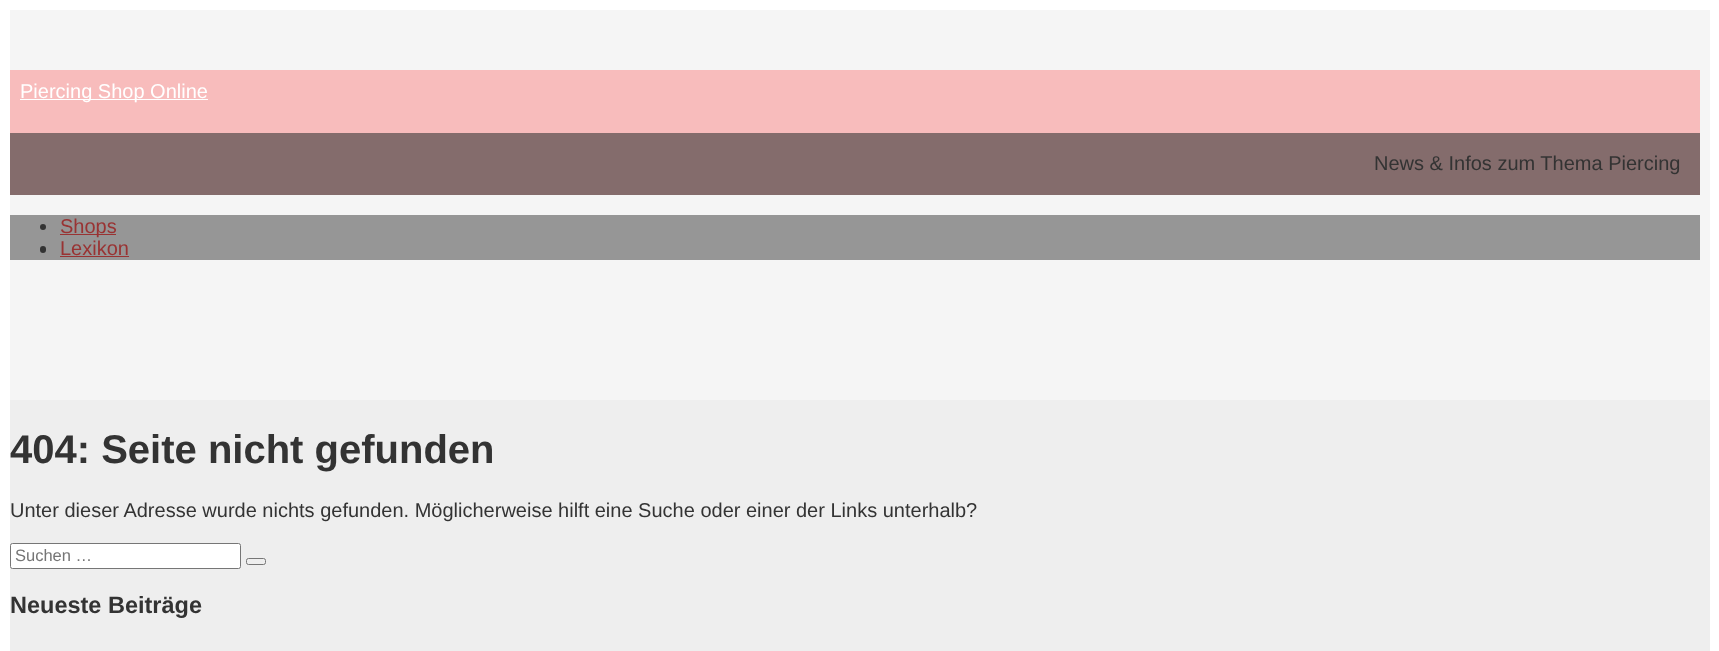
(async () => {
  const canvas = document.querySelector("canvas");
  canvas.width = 1719;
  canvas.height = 651;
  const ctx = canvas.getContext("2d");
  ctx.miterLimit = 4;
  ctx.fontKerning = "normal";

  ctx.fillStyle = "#ffffff";
  ctx.fillRect(0, 0, 1719, 651);
  for (const [x, y, w, h, color] of [
    [10, 400, 1700, 251, "#eeeeee"],
    [10, 10, 1700, 390, "#f5f5f5"],
    [10, 70, 1690, 63, "#f8bcbc"],
    [20, 99, 188, 1, "#ffffff"],
    [10, 133, 1690, 62, "#846c6c"],
    [10, 215, 1690, 45, "#969696"],
  ]) {
    ctx.fillStyle = color;
    ctx.fillRect(x, y, w, h);
  }
  ctx.fillStyle = "#333333";
  ctx.beginPath();
  ctx.arc(43, 227, 3, 0, Math.PI * 2);
  ctx.fill();
  ctx.fillStyle = "#993333";
  ctx.fillRect(60, 234, 56, 1);
  ctx.fillStyle = "#333333";
  ctx.beginPath();
  ctx.roundRect(40, 246, 6, 7, 3);
  ctx.fill();
  ctx.fillStyle = "#993333";
  ctx.fillRect(60, 256, 69, 1);
  ctx.fillStyle = "#ffffff";
  ctx.beginPath();
  ctx.roundRect(10.5, 543.5, 230, 25, 2);
  ctx.fill();
  ctx.strokeStyle = "#767676";
  ctx.stroke();
  ctx.beginPath();
  ctx.roundRect(246.5, 558.5, 19, 6, 2);
  ctx.stroke();
  ctx.font = "20px Liberation Sans";
  ctx.fillText("Piercing Shop Online", 20, 98);
  ctx.fillStyle = "#333333";
  ctx.fillText("News & Infos zum Thema Piercing", 1374, 170);
  ctx.fillStyle = "#993333";
  ctx.fillText("Shops", 60, 233);
  ctx.fillText("Lexikon", 60, 255);
  ctx.font = "bold 40px Liberation Sans";
  ctx.fillStyle = "#333333";
  ctx.fillText("404: Seite nicht gefunden", 10, 463);
  ctx.font = "20px Liberation Sans";
  ctx.fillText("Unter dieser Adresse wurde nichts gefunden. Möglicherweise hilft eine Suche oder einer der Links unterhalb?", 10, 517);
  ctx.font = "16.5px Liberation Sans";
  ctx.fillStyle = "#757575";
  ctx.fillText("Suchen …", 15, 561);
  ctx.font = "bold 23.5px Liberation Sans";
  ctx.fillStyle = "#333333";
  ctx.fillText("Neueste Beiträge", 10, 613);
})();
